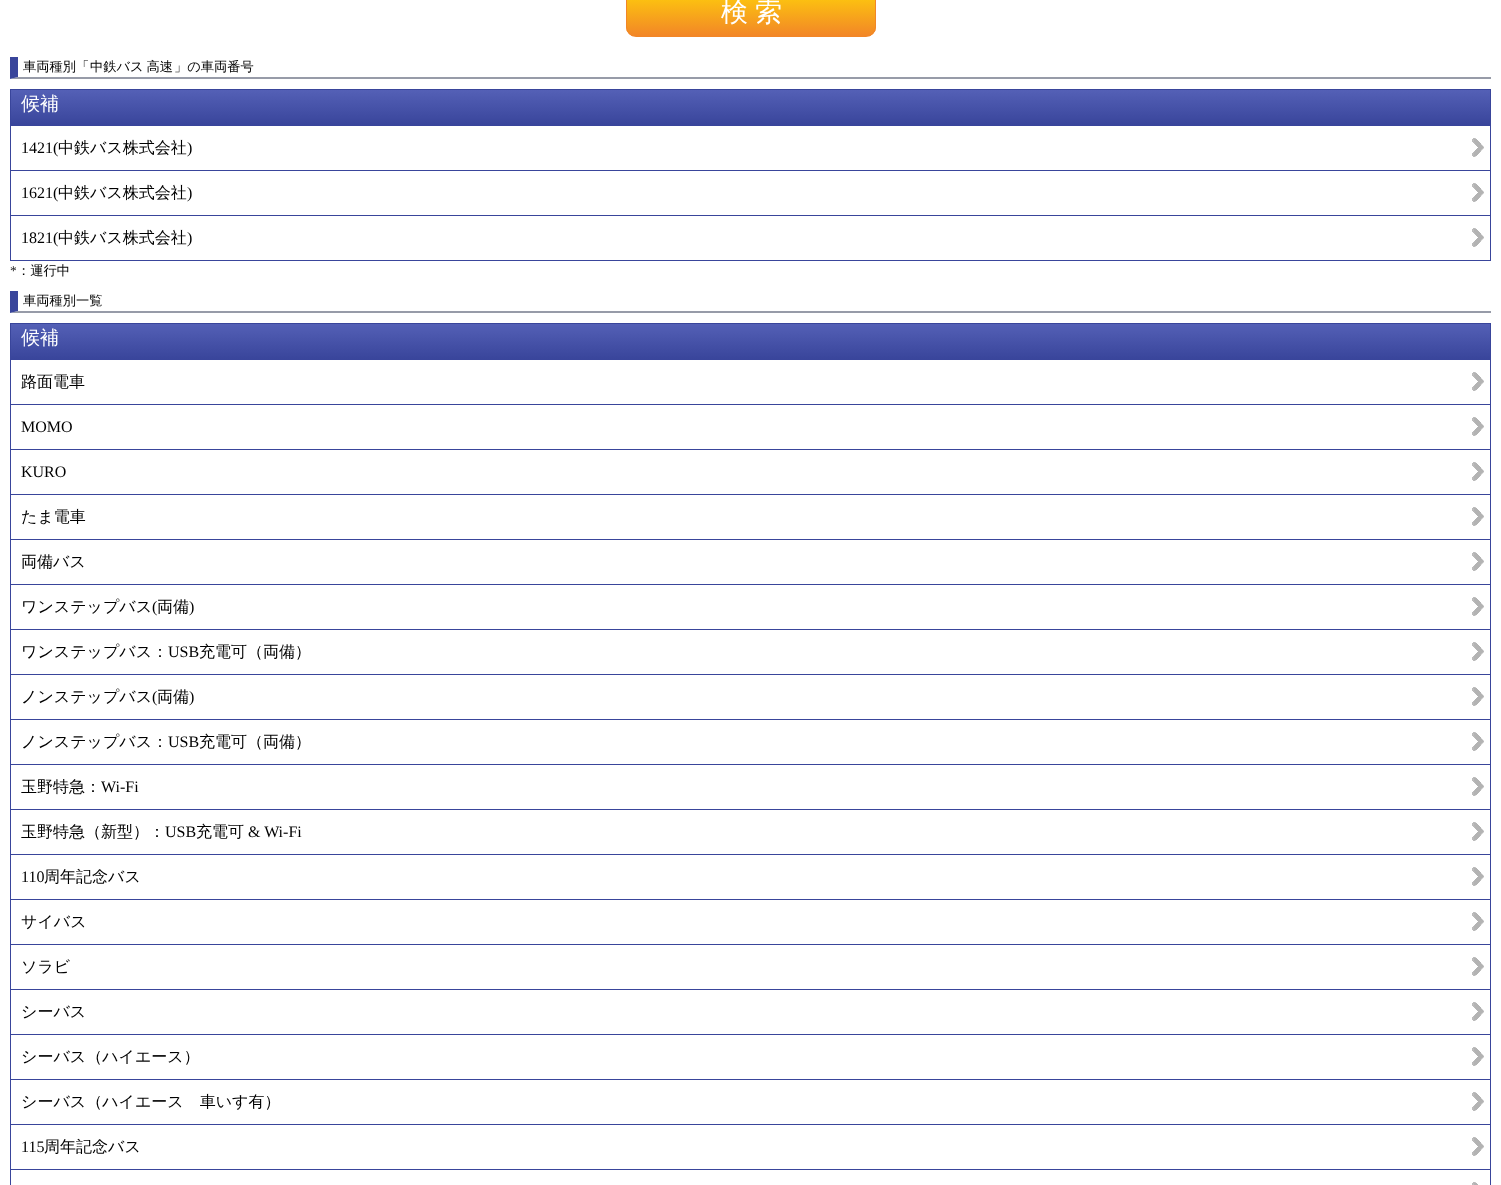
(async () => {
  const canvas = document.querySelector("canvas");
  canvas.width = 1501;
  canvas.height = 1185;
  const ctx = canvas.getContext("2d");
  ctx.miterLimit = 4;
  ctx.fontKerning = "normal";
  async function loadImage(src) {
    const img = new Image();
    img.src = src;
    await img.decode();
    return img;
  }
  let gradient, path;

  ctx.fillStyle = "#ffffff";
  ctx.fillRect(0, 0, 1501, 1185);
  ctx.save();
  ctx.beginPath();
  ctx.roundRect(626, -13, 250, 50, 10);
  ctx.clip();
  gradient = ctx.createLinearGradient(627, -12, 627, 36);
  gradient.addColorStop(0, "#ffd20a");
  gradient.addColorStop(1, "#f28627");
  ctx.fillStyle = gradient;
  ctx.fillRect(626, 0, 250, 36);
  ctx.restore();
  ctx.beginPath();
  ctx.roundRect(626.5, -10.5, 249, 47, 9.5);
  ctx.strokeStyle = "#f28627";
  ctx.stroke();
  ctx.fillStyle = "#979ba8";
  path = new Path2D("M1491 79H10L18 77H1491Z");
  ctx.fill(path);
  ctx.fillStyle = "#39459b";
  path = new Path2D("M10 79V57H18V77Z");
  ctx.fill(path);
  gradient = ctx.createLinearGradient(11, 90, 11, 125);
  gradient.addColorStop(0, "#5460b6");
  gradient.addColorStop(1, "#39459b");
  ctx.fillStyle = gradient;
  ctx.fillRect(11, 90, 1479, 35);
  ctx.strokeStyle = "#39459b";
  ctx.strokeRect(10.5, 89.5, 1480, 36);
  ctx.drawImage(await loadImage("img/1.png"), 1472, 138, 12, 19);
  for (const [x, y, w, h, color] of [
    [1490, 126, 1, 135, "#39459b"],
    [10, 170, 1481, 1, "#39459b"],
    [10, 126, 1, 45, "#39459b"],
  ]) {
    ctx.fillStyle = color;
    ctx.fillRect(x, y, w, h);
  }
  ctx.drawImage(await loadImage("img/1.png"), 1472, 183, 12, 19);
  ctx.fillRect(10, 215, 1481, 1);
  ctx.fillRect(10, 171, 1, 45);
  ctx.drawImage(await loadImage("img/1.png"), 1472, 228, 12, 19);
  ctx.fillRect(10, 260, 1481, 1);
  ctx.fillRect(10, 216, 1, 45);
  ctx.fillStyle = "#979ba8";
  path = new Path2D("M1491 313H10L18 311H1491Z");
  ctx.fill(path);
  ctx.fillStyle = "#39459b";
  path = new Path2D("M10 313V291H18V311Z");
  ctx.fill(path);
  gradient = ctx.createLinearGradient(11, 324, 11, 359);
  gradient.addColorStop(0, "#5460b6");
  gradient.addColorStop(1, "#39459b");
  ctx.fillStyle = gradient;
  ctx.fillRect(11, 324, 1479, 35);
  ctx.strokeRect(10.5, 323.5, 1480, 36);
  ctx.drawImage(await loadImage("img/1.png"), 1472, 372, 12, 19);
  for (const [x, y, w, h, color] of [
    [1490, 360, 1, 825, "#39459b"],
    [10, 404, 1481, 1, "#39459b"],
    [10, 360, 1, 45, "#39459b"],
  ]) {
    ctx.fillStyle = color;
    ctx.fillRect(x, y, w, h);
  }
  ctx.drawImage(await loadImage("img/1.png"), 1472, 417, 12, 19);
  ctx.fillRect(10, 449, 1481, 1);
  ctx.fillRect(10, 405, 1, 45);
  ctx.drawImage(await loadImage("img/1.png"), 1472, 462, 12, 19);
  ctx.fillRect(10, 494, 1481, 1);
  ctx.fillRect(10, 450, 1, 45);
  ctx.drawImage(await loadImage("img/1.png"), 1472, 507, 12, 19);
  ctx.fillRect(10, 539, 1481, 1);
  ctx.fillRect(10, 495, 1, 45);
  ctx.drawImage(await loadImage("img/1.png"), 1472, 552, 12, 19);
  ctx.fillRect(10, 584, 1481, 1);
  ctx.fillRect(10, 540, 1, 45);
  ctx.drawImage(await loadImage("img/1.png"), 1472, 597, 12, 19);
  ctx.fillRect(10, 629, 1481, 1);
  ctx.fillRect(10, 585, 1, 45);
  ctx.drawImage(await loadImage("img/1.png"), 1472, 642, 12, 19);
  ctx.fillRect(10, 674, 1481, 1);
  ctx.fillRect(10, 630, 1, 45);
  ctx.drawImage(await loadImage("img/1.png"), 1472, 687, 12, 19);
  ctx.fillRect(10, 719, 1481, 1);
  ctx.fillRect(10, 675, 1, 45);
  ctx.drawImage(await loadImage("img/1.png"), 1472, 732, 12, 19);
  ctx.fillRect(10, 764, 1481, 1);
  ctx.fillRect(10, 720, 1, 45);
  ctx.drawImage(await loadImage("img/1.png"), 1472, 777, 12, 19);
  ctx.fillRect(10, 809, 1481, 1);
  ctx.fillRect(10, 765, 1, 45);
  ctx.drawImage(await loadImage("img/1.png"), 1472, 822, 12, 19);
  ctx.fillRect(10, 854, 1481, 1);
  ctx.fillRect(10, 810, 1, 45);
  ctx.drawImage(await loadImage("img/1.png"), 1472, 867, 12, 19);
  ctx.fillRect(10, 899, 1481, 1);
  ctx.fillRect(10, 855, 1, 45);
  ctx.drawImage(await loadImage("img/1.png"), 1472, 912, 12, 19);
  ctx.fillRect(10, 944, 1481, 1);
  ctx.fillRect(10, 900, 1, 45);
  ctx.drawImage(await loadImage("img/1.png"), 1472, 957, 12, 19);
  ctx.fillRect(10, 989, 1481, 1);
  ctx.fillRect(10, 945, 1, 45);
  ctx.drawImage(await loadImage("img/1.png"), 1472, 1002, 12, 19);
  ctx.fillRect(10, 1034, 1481, 1);
  ctx.fillRect(10, 990, 1, 45);
  ctx.drawImage(await loadImage("img/1.png"), 1472, 1047, 12, 19);
  ctx.fillRect(10, 1079, 1481, 1);
  ctx.fillRect(10, 1035, 1, 45);
  ctx.drawImage(await loadImage("img/1.png"), 1472, 1092, 12, 19);
  ctx.fillRect(10, 1124, 1481, 1);
  ctx.fillRect(10, 1080, 1, 45);
  ctx.drawImage(await loadImage("img/1.png"), 1472, 1137, 12, 19);
  ctx.fillRect(10, 1169, 1481, 1);
  ctx.fillRect(10, 1125, 1, 60);
  ctx.drawImage(await loadImage("img/2.png"), 1472, 1182, 6, 3);
  ctx.wordSpacing = "-1px";
  ctx.font = "500 27px WenQuanYi Zen Hei";
  ctx.fillStyle = "#ffffff";
  ctx.fillText("検 索", 721, 21);
  ctx.wordSpacing = "0px";
  ctx.font = "500 13.25px WenQuanYi Zen Hei";
  ctx.fillStyle = "#000000";
  ctx.fillText("車両種別「", 23, 71);
  ctx.wordSpacing = "-1px";
  ctx.fillText("中鉄バス 高速", 90, 71);
  ctx.wordSpacing = "0px";
  ctx.fillText("」の車両番号", 174, 71);
  ctx.font = "500 19px WenQuanYi Zen Hei";
  ctx.fillStyle = "#ffffff";
  ctx.fillText("候補", 21, 110);
  ctx.font = "16px Liberation Serif";
  ctx.fillStyle = "#000000";
  ctx.fillText("1421(", 21, 153);
  ctx.font = "500 16px WenQuanYi Zen Hei";
  ctx.fillText("中鉄バス株式会社", 58, 153);
  ctx.font = "16px Liberation Serif";
  ctx.fillText(")", 187, 153);
  ctx.fillText("1621(", 21, 198);
  ctx.font = "500 16px WenQuanYi Zen Hei";
  ctx.fillText("中鉄バス株式会社", 58, 198);
  ctx.font = "16px Liberation Serif";
  ctx.fillText(")", 187, 198);
  ctx.fillText("1821(", 21, 243);
  ctx.font = "500 16px WenQuanYi Zen Hei";
  ctx.fillText("中鉄バス株式会社", 58, 243);
  ctx.font = "16px Liberation Serif";
  ctx.fillText(")", 187, 243);
  ctx.font = "13.25px Liberation Serif";
  ctx.fillText("*", 10, 275);
  ctx.font = "500 13.25px WenQuanYi Zen Hei";
  ctx.fillText("：運行中", 17, 275);
  ctx.fillText("車両種別一覧", 23, 305);
  ctx.font = "500 19px WenQuanYi Zen Hei";
  ctx.fillStyle = "#ffffff";
  ctx.fillText("候補", 21, 344);
  ctx.font = "500 16px WenQuanYi Zen Hei";
  ctx.fillStyle = "#000000";
  ctx.fillText("路面電車", 21, 387);
  ctx.font = "16px Liberation Serif";
  ctx.fillText("MOMO", 21, 432);
  ctx.fillText("KURO", 21, 477);
  ctx.font = "500 16px WenQuanYi Zen Hei";
  for (const [text, x, y] of [
    ["たま電車", 21, 522],
    ["両備バス", 21, 567],
    ["ワンステップバス", 21, 612],
  ]) {
    ctx.fillText(text, x, y);
  }
  ctx.font = "16px Liberation Serif";
  ctx.fillText("(", 152, 612);
  ctx.font = "500 16px WenQuanYi Zen Hei";
  ctx.fillText("両備", 157, 612);
  ctx.font = "16px Liberation Serif";
  ctx.fillText(")", 189, 612);
  ctx.font = "500 16px WenQuanYi Zen Hei";
  ctx.fillText("ワンステップバス：", 21, 657);
  ctx.font = "16px Liberation Serif";
  ctx.fillText("USB", 168, 657);
  ctx.font = "500 16px WenQuanYi Zen Hei";
  ctx.fillText("充電可（両備）", 199, 657);
  ctx.fillText("ノンステップバス", 21, 702);
  ctx.font = "16px Liberation Serif";
  ctx.fillText("(", 152, 702);
  ctx.font = "500 16px WenQuanYi Zen Hei";
  ctx.fillText("両備", 157, 702);
  ctx.font = "16px Liberation Serif";
  ctx.fillText(")", 189, 702);
  ctx.font = "500 16px WenQuanYi Zen Hei";
  ctx.fillText("ノンステップバス：", 21, 747);
  ctx.font = "16px Liberation Serif";
  ctx.fillText("USB", 168, 747);
  ctx.font = "500 16px WenQuanYi Zen Hei";
  ctx.fillText("充電可（両備）", 199, 747);
  ctx.fillText("玉野特急：", 21, 792);
  ctx.font = "16px Liberation Serif";
  ctx.fillText("Wi-Fi", 101, 792);
  ctx.font = "500 16px WenQuanYi Zen Hei";
  ctx.fillText("玉野特急（新型）：", 21, 837);
  ctx.font = "16px Liberation Serif";
  ctx.fillText("USB", 165, 837);
  ctx.font = "500 16px WenQuanYi Zen Hei";
  ctx.fillText("充電可", 196, 837);
  ctx.font = "16px Liberation Serif";
  ctx.fillText("& Wi-Fi", 248, 837);
  ctx.fillText("110", 21, 882);
  ctx.font = "500 16px WenQuanYi Zen Hei";
  for (const [text, x, y] of [
    ["周年記念バス", 44, 882],
    ["サイバス", 21, 927],
    ["ソラビ", 21, 972],
    ["シーバス", 21, 1017],
    ["シーバス（ハイエース）", 21, 1062],
    ["シーバス（ハイエース　車いす有）", 21, 1107],
  ]) {
    ctx.fillText(text, x, y);
  }
  ctx.font = "16px Liberation Serif";
  ctx.fillText("115", 21, 1152);
  ctx.font = "500 16px WenQuanYi Zen Hei";
  ctx.fillText("周年記念バス", 44, 1152);
})();
